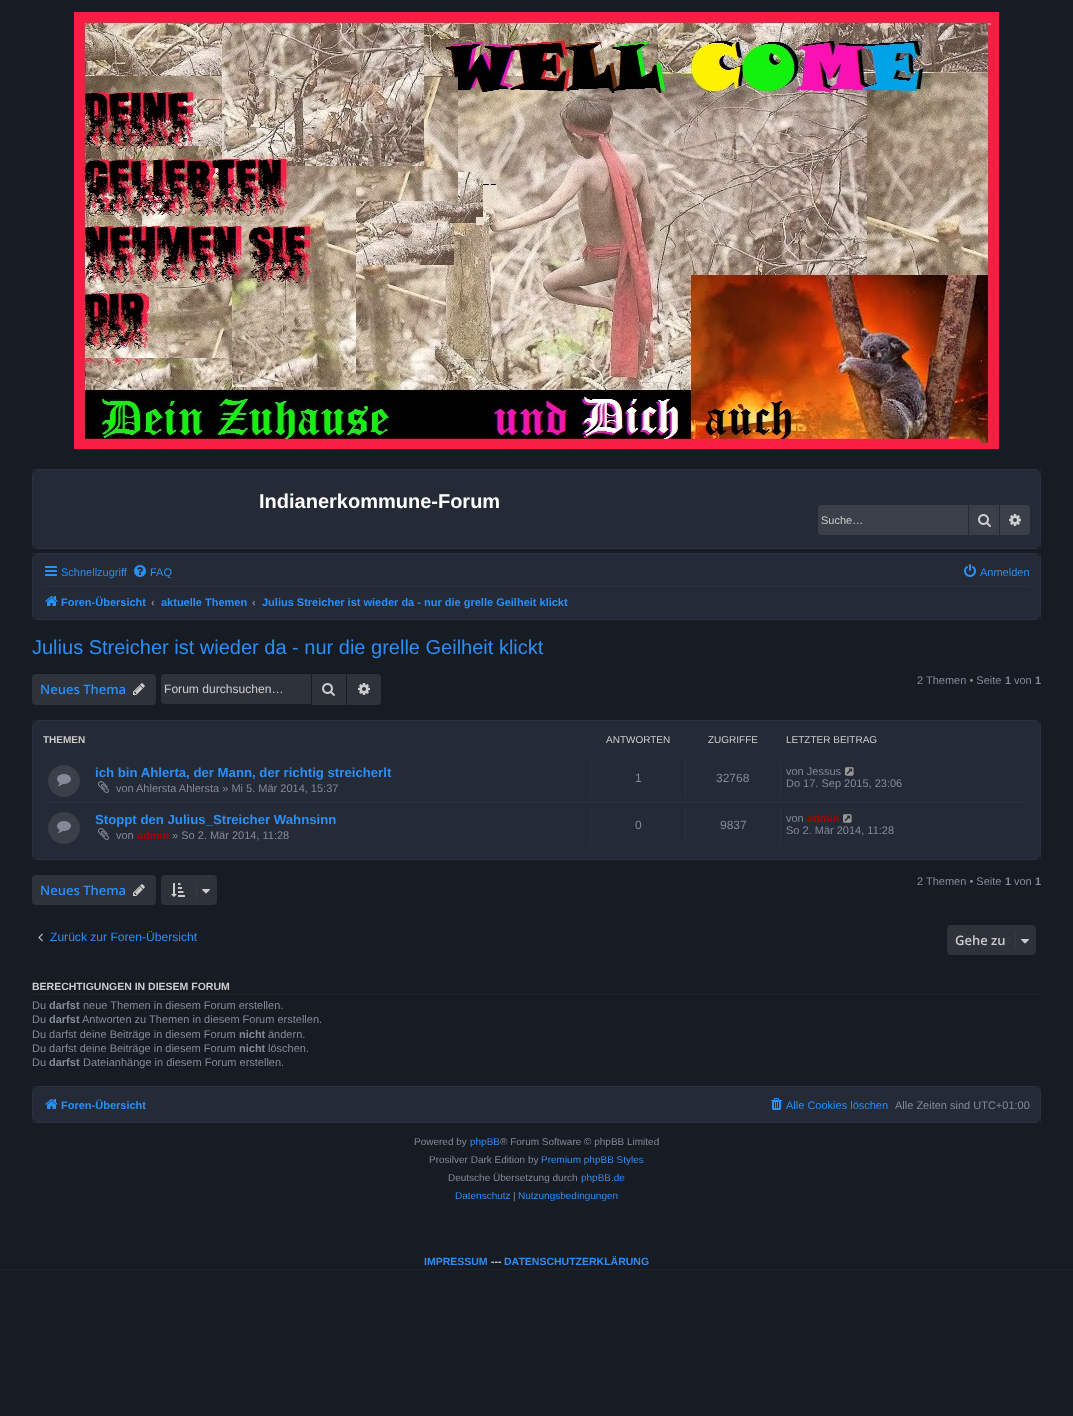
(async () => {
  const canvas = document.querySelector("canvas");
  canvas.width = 1073;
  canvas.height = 1416;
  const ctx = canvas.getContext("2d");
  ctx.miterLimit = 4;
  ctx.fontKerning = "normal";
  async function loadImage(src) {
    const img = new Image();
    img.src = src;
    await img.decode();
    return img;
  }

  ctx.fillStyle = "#171b24";
  ctx.fillRect(0, 0, 1073, 1416);
  ctx.drawImage(await loadImage("img/1.png"), 74, 12, 925, 437);
  ctx.fillStyle = "#242a36";
  ctx.beginPath();
  ctx.roundRect(32, 469, 1009, 80, 7);
  ctx.fill();
  ctx.strokeStyle = "rgba(255, 255, 255, 0.04)";
  ctx.strokeRect(32.5, 469.5, 1008, 79);
  ctx.fillStyle = "#3a3f4a";
  ctx.beginPath();
  ctx.roundRect(818, 505, 150, 30, [4, 0, 0, 4]);
  ctx.fill();
  ctx.fillRect(969, 505, 30, 30);
  ctx.drawImage(await loadImage("img/2.png"), 978, 514, 13, 13);
  ctx.beginPath();
  ctx.roundRect(1000, 505, 30, 30, [0, 4, 4, 0]);
  ctx.fill();
  ctx.drawImage(await loadImage("img/3.png"), 1009, 514, 12, 12);
  ctx.fillStyle = "#242a36";
  ctx.beginPath();
  ctx.roundRect(32, 553, 1009, 67, 7);
  ctx.fill();
  ctx.strokeRect(32.5, 553.5, 1008, 66);
  ctx.drawImage(await loadImage("img/4.png"), 45, 566, 12, 10);
  ctx.drawImage(await loadImage("img/5.png"), 134, 565, 12, 12);
  ctx.drawImage(await loadImage("img/6.png"), 964, 564, 12, 13);
  ctx.fillStyle = "#2d333e";
  ctx.fillRect(43, 586, 987, 1);
  ctx.drawImage(await loadImage("img/7.png"), 45, 596, 13, 10);
  ctx.fillStyle = "#2e323a";
  ctx.beginPath();
  ctx.roundRect(32, 674, 124, 31, 4);
  ctx.fill();
  ctx.drawImage(await loadImage("img/8.png"), 133, 683, 12, 12);
  ctx.beginPath();
  ctx.roundRect(161, 674, 150, 30, [4, 0, 0, 4]);
  ctx.fill();
  ctx.fillRect(312, 674, 34, 31);
  ctx.drawImage(await loadImage("img/9.png"), 322, 683, 13, 13);
  ctx.beginPath();
  ctx.roundRect(347, 674, 34, 31, [0, 4, 4, 0]);
  ctx.fill();
  ctx.drawImage(await loadImage("img/10.png"), 358, 683, 12, 12);
  ctx.fillStyle = "#242a36";
  ctx.beginPath();
  ctx.roundRect(32, 720, 1009, 140, 7);
  ctx.fill();
  ctx.strokeRect(32.5, 720.5, 1008, 139);
  ctx.fillStyle = "#2d333e";
  ctx.fillRect(47, 802, 979, 1);
  ctx.fillStyle = "#3a3f4a";
  ctx.beginPath();
  ctx.arc(64, 781, 16, 0, Math.PI * 2);
  ctx.fill();
  ctx.drawImage(await loadImage("img/11.png"), 57, 774, 14, 12);
  ctx.drawImage(await loadImage("img/12.png"), 98, 781, 11, 12);
  for (const [x, y, w, h, color] of [
    [590, 761, 1, 36, "#2d333e"],
    [685, 761, 1, 36, "#2d333e"],
    [780, 761, 1, 36, "#2d333e"],
  ]) {
    ctx.fillStyle = color;
    ctx.fillRect(x, y, w, h);
  }
  ctx.drawImage(await loadImage("img/13.png"), 845, 767, 9, 9);
  ctx.fillStyle = "#3a3f4a";
  ctx.beginPath();
  ctx.arc(64, 828, 16, 0, Math.PI * 2);
  ctx.fill();
  ctx.drawImage(await loadImage("img/11.png"), 57, 821, 14, 12);
  ctx.drawImage(await loadImage("img/12.png"), 98, 828, 11, 12);
  for (const [x, y, w, h, color] of [
    [590, 808, 1, 36, "#2d333e"],
    [685, 808, 1, 36, "#2d333e"],
    [780, 808, 1, 36, "#2d333e"],
  ]) {
    ctx.fillStyle = color;
    ctx.fillRect(x, y, w, h);
  }
  ctx.drawImage(await loadImage("img/13.png"), 843, 814, 9, 9);
  ctx.fillStyle = "#2e323a";
  ctx.beginPath();
  ctx.roundRect(161, 875, 56, 30, 4);
  ctx.fill();
  ctx.drawImage(await loadImage("img/14.png"), 171, 883, 14, 14);
  ctx.fillStyle = "#363a42";
  ctx.fillRect(196, 881, 1, 18);
  ctx.drawImage(await loadImage("img/15.png"), 202, 889, 8, 5);
  ctx.fillStyle = "#2e323a";
  ctx.beginPath();
  ctx.roundRect(32, 875, 124, 30, 4);
  ctx.fill();
  ctx.drawImage(await loadImage("img/8.png"), 133, 884, 12, 12);
  ctx.drawImage(await loadImage("img/16.png"), 38, 933, 5, 9);
  ctx.beginPath();
  ctx.roundRect(947, 925, 89, 30, 4);
  ctx.fill();
  ctx.fillStyle = "#363a42";
  ctx.fillRect(1015, 931, 1, 18);
  ctx.drawImage(await loadImage("img/15.png"), 1021, 939, 8, 5);
  ctx.fillStyle = "#20242d";
  ctx.fillRect(32, 994, 1009, 1);
  ctx.fillStyle = "#242a36";
  ctx.beginPath();
  ctx.roundRect(32, 1086, 1009, 37, 7);
  ctx.fill();
  ctx.strokeRect(32.5, 1086.5, 1008, 36);
  ctx.drawImage(await loadImage("img/7.png"), 45, 1099, 13, 10);
  ctx.drawImage(await loadImage("img/17.png"), 771, 1098, 11, 12);
  ctx.fillStyle = "#20242d";
  ctx.fillRect(0, 1269, 1073, 1);
  ctx.font = "bold 20px Liberation Sans";
  ctx.fillStyle = "#ffffff";
  ctx.fillText("Indianerkommune-Forum", 259, 508);
  ctx.font = "11px Liberation Sans";
  ctx.fillStyle = "#cccccc";
  ctx.fillText("Suche…", 821, 524);
  ctx.fillStyle = "#2a8ff7";
  for (const [text, x, y] of [
    ["Schnellzugriff", 61, 576],
    ["FAQ", 150, 576],
    ["Anmelden", 980, 576],
  ]) {
    ctx.fillText(text, x, y);
  }
  ctx.font = "bold 11px Liberation Sans";
  ctx.fillText("Foren-Übersicht", 61, 606);
  ctx.fillStyle = "#838b98";
  ctx.fillText("‹", 151, 606);
  ctx.fillStyle = "#2a8ff7";
  ctx.fillText("aktuelle Themen", 161, 606);
  ctx.fillStyle = "#838b98";
  ctx.fillText("‹", 252, 606);
  ctx.fillStyle = "#2a8ff7";
  ctx.fillText("Julius Streicher ist wieder da - nur die grelle Geilheit klickt", 262, 606);
  ctx.font = "20px Liberation Sans";
  ctx.fillText("Julius Streicher ist wieder da - nur die grelle Geilheit klickt", 32, 654);
  ctx.font = "11px Liberation Sans";
  ctx.fillStyle = "#838b98";
  ctx.fillText("2 Themen • Seite", 917, 684);
  ctx.font = "bold 11px Liberation Sans";
  ctx.fillText("1", 1005, 684);
  ctx.font = "11px Liberation Sans";
  ctx.fillText("von", 1014, 684);
  ctx.font = "bold 11px Liberation Sans";
  ctx.fillText("1", 1035, 684);
  ctx.font = "600 13px Open Sans";
  ctx.fillStyle = "#2a8ff7";
  ctx.fillText("Neues Thema", 40, 694);
  ctx.font = "12.1px Liberation Sans";
  ctx.fillStyle = "#cccccc";
  ctx.fillText("Forum durchsuchen…", 164, 693);
  ctx.font = "bold 10px Liberation Sans";
  ctx.fillText("THEMEN", 43, 743);
  ctx.font = "10px Liberation Sans";
  for (const [text, x, y] of [
    ["ANTWORTEN", 606, 743],
    ["ZUGRIFFE", 708, 743],
    ["LETZTER BEITRAG", 786, 743],
  ]) {
    ctx.fillText(text, x, y);
  }
  ctx.font = "bold 13.2px Liberation Sans";
  ctx.fillStyle = "#2a8ff7";
  ctx.fillText("ich bin Ahlerta, der Mann, der richtig streicherlt", 95, 777);
  ctx.font = "11px Liberation Sans";
  ctx.fillStyle = "#838b98";
  ctx.fillText("von", 116, 792);
  ctx.fillText("Ahlersta Ahlersta » Mi 5. Mär 2014, 15:37", 136, 792);
  ctx.font = "12px Liberation Sans";
  ctx.fillText("1", 635, 782);
  ctx.fillText("32768", 716, 782);
  ctx.font = "11px Liberation Sans";
  ctx.fillText("von Jessus", 786, 775);
  ctx.fillText("Do 17. Sep 2015, 23:06", 786, 787);
  ctx.font = "bold 13.2px Liberation Sans";
  ctx.fillStyle = "#2a8ff7";
  ctx.fillText("Stoppt den Julius_Streicher Wahnsinn", 95, 824);
  ctx.font = "11px Liberation Sans";
  ctx.fillStyle = "#838b98";
  ctx.fillText("von", 116, 839);
  ctx.font = "bold 11px Liberation Sans";
  ctx.fillStyle = "#aa0000";
  ctx.fillText("admin", 137, 839);
  ctx.font = "11px Liberation Sans";
  ctx.fillStyle = "#838b98";
  ctx.fillText("» So 2. Mär 2014, 11:28", 172, 839);
  ctx.font = "12px Liberation Sans";
  ctx.fillText("0", 635, 829);
  ctx.fillText("9837", 720, 829);
  ctx.font = "11px Liberation Sans";
  ctx.fillText("von", 786, 822);
  ctx.font = "bold 11px Liberation Sans";
  ctx.fillStyle = "#aa0000";
  ctx.fillText("admin", 807, 822);
  ctx.font = "11px Liberation Sans";
  ctx.fillStyle = "#838b98";
  ctx.fillText("So 2. Mär 2014, 11:28", 786, 834);
  ctx.fillText("2 Themen • Seite", 917, 885);
  ctx.font = "bold 11px Liberation Sans";
  ctx.fillText("1", 1005, 885);
  ctx.font = "11px Liberation Sans";
  ctx.fillText("von", 1014, 885);
  ctx.font = "bold 11px Liberation Sans";
  ctx.fillText("1", 1035, 885);
  ctx.font = "600 13px Open Sans";
  ctx.fillStyle = "#2a8ff7";
  ctx.fillText("Neues Thema", 40, 895);
  ctx.font = "12.1px Liberation Sans";
  ctx.fillText("Zurück zur Foren-Übersicht", 50, 941);
  ctx.font = "600 13px Open Sans";
  ctx.fillStyle = "#cccccc";
  ctx.fillText("Gehe zu", 955, 945);
  ctx.font = "bold 10.5px Liberation Sans";
  ctx.fillText("BERECHTIGUNGEN IN DIESEM FORUM", 32, 990);
  ctx.font = "11px Liberation Sans";
  ctx.fillStyle = "#838b98";
  ctx.fillText("Du", 32, 1009);
  ctx.font = "bold 11px Liberation Sans";
  ctx.fillText("darfst", 49, 1009);
  ctx.font = "11px Liberation Sans";
  ctx.fillText("neue Themen in diesem Forum erstellen.", 83, 1009);
  ctx.fillText("Du", 32, 1023);
  ctx.font = "bold 11px Liberation Sans";
  ctx.fillText("darfst", 49, 1023);
  ctx.font = "11px Liberation Sans";
  ctx.fillText("Antworten zu Themen in diesem Forum erstellen.", 82, 1023);
  ctx.fillText("Du darfst deine Beiträge in diesem Forum", 32, 1038);
  ctx.font = "bold 11px Liberation Sans";
  ctx.fillText("nicht", 239, 1038);
  ctx.font = "11px Liberation Sans";
  ctx.fillText("ändern.", 268, 1038);
  ctx.fillText("Du darfst deine Beiträge in diesem Forum", 32, 1052);
  ctx.font = "bold 11px Liberation Sans";
  ctx.fillText("nicht", 239, 1052);
  ctx.font = "11px Liberation Sans";
  ctx.fillText("löschen.", 268, 1052);
  ctx.fillText("Du", 32, 1066);
  ctx.font = "bold 11px Liberation Sans";
  ctx.fillText("darfst", 49, 1066);
  ctx.font = "11px Liberation Sans";
  ctx.fillText("Dateianhänge in diesem Forum erstellen.", 83, 1066);
  ctx.font = "bold 11px Liberation Sans";
  ctx.fillStyle = "#2a8ff7";
  ctx.fillText("Foren-Übersicht", 61, 1109);
  ctx.font = "11px Liberation Sans";
  ctx.fillText("Alle Cookies löschen", 786, 1109);
  ctx.fillStyle = "#838b98";
  ctx.fillText("Alle Zeiten sind UTC+01:00", 895, 1109);
  ctx.font = "10px Liberation Sans";
  ctx.fillText("Powered by", 414, 1145);
  ctx.fillStyle = "#2a8ff7";
  ctx.fillText("phpBB", 470, 1145);
  ctx.fillStyle = "#838b98";
  ctx.fillText("® Forum Software © phpBB Limited", 500, 1145);
  ctx.fillText("Prosilver Dark Edition by", 429, 1163);
  ctx.fillStyle = "#2a8ff7";
  ctx.fillText("Premium phpBB Styles", 541, 1163);
  ctx.fillStyle = "#838b98";
  ctx.fillText("Deutsche Übersetzung durch", 448, 1181);
  ctx.fillStyle = "#2a8ff7";
  ctx.fillText("phpBB.de", 581, 1181);
  ctx.fillText("Datenschutz", 455, 1199);
  ctx.fillStyle = "#838b98";
  ctx.fillText("|", 513, 1199);
  ctx.fillStyle = "#2a8ff7";
  ctx.fillText("Nutzungsbedingungen", 518, 1199);
  ctx.font = "bold 10.5px Liberation Sans";
  ctx.fillText("IMPRESSUM", 424, 1265);
  ctx.fillStyle = "#cccccc";
  ctx.fillText("---", 491, 1265);
  ctx.fillStyle = "#2a8ff7";
  ctx.fillText("DATENSCHUTZERKLÄRUNG", 504, 1265);
})();
